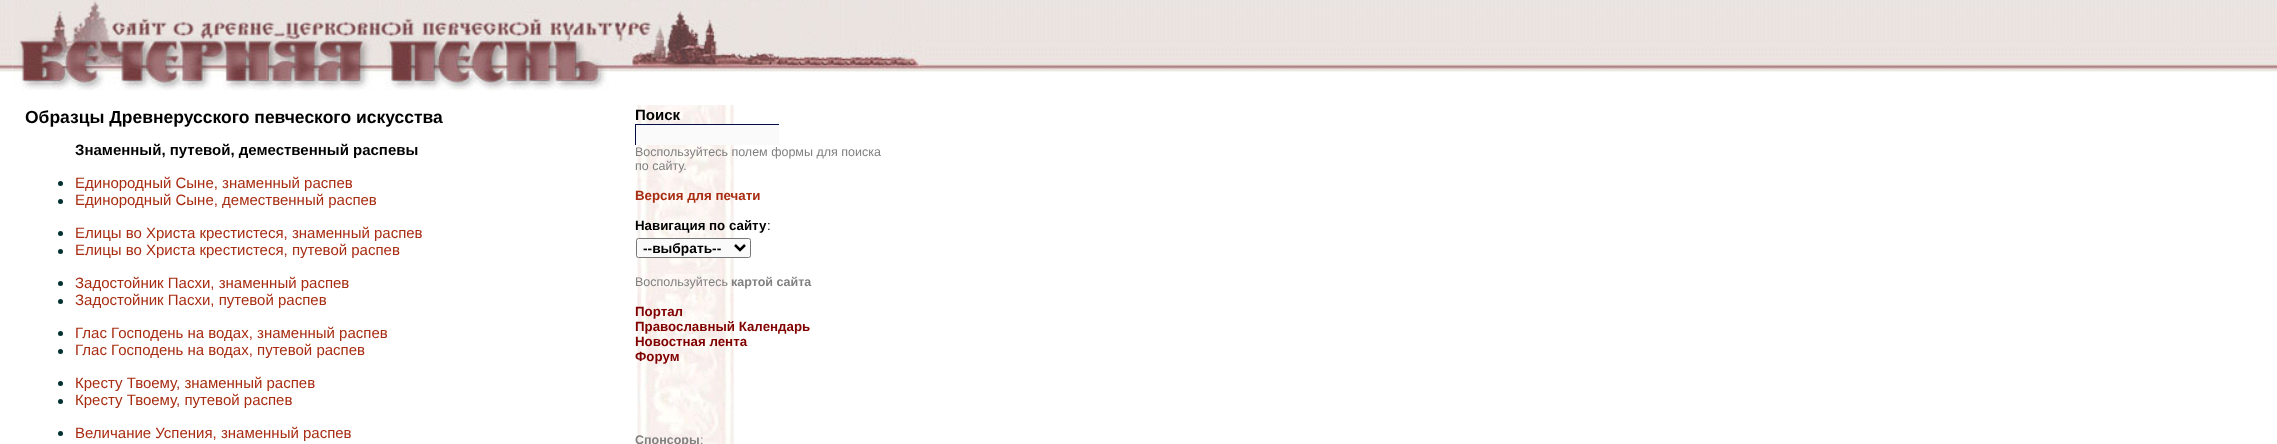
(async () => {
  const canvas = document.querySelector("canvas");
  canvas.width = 2277;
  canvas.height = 444;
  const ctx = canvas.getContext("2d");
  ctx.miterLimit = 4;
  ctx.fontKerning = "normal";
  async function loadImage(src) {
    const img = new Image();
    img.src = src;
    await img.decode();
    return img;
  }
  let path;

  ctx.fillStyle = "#ffffff";
  ctx.fillRect(0, 0, 2277, 444);
  ctx.drawImage(await loadImage("img/1.png"), 0, 0, 13, 72);
  ctx.drawImage(await loadImage("img/2.png"), 12, 0, 1, 72);
  ctx.drawImage(await loadImage("img/3.png"), 12, 0, 363, 91);
  ctx.drawImage(await loadImage("img/4.png"), 608, 0, 1, 72);
  ctx.drawImage(await loadImage("img/6.png"), 608, 0, 316, 72);
  ctx.drawImage(await loadImage("img/5.png"), 375, 0, 234, 91);
  ctx.drawImage(await loadImage("img/8.png"), 923, 0, 1354, 72);
  ctx.drawImage(await loadImage("img/7.png"), 608, 0, 316, 73);
  ctx.fillStyle = "#003030";
  ctx.beginPath();
  ctx.arc(60.5, 183.5, 2.5, 0, Math.PI * 2);
  ctx.fill();
  ctx.beginPath();
  ctx.arc(60.5, 201.5, 2.5, 0, Math.PI * 2);
  ctx.fill();
  ctx.beginPath();
  ctx.arc(60.5, 233.5, 2.5, 0, Math.PI * 2);
  ctx.fill();
  ctx.beginPath();
  ctx.arc(60.5, 251.5, 2.5, 0, Math.PI * 2);
  ctx.fill();
  ctx.beginPath();
  ctx.arc(60.5, 283.5, 2.5, 0, Math.PI * 2);
  ctx.fill();
  ctx.beginPath();
  ctx.arc(60.5, 301.5, 2.5, 0, Math.PI * 2);
  ctx.fill();
  ctx.beginPath();
  ctx.arc(60.5, 333.5, 2.5, 0, Math.PI * 2);
  ctx.fill();
  ctx.beginPath();
  ctx.arc(60.5, 351.5, 2.5, 0, Math.PI * 2);
  ctx.fill();
  ctx.beginPath();
  ctx.arc(60.5, 383.5, 2.5, 0, Math.PI * 2);
  ctx.fill();
  ctx.beginPath();
  ctx.arc(60.5, 401.5, 2.5, 0, Math.PI * 2);
  ctx.fill();
  ctx.beginPath();
  ctx.arc(60.5, 433.5, 2.5, 0, Math.PI * 2);
  ctx.fill();
  ctx.drawImage(await loadImage("img/9.png"), 634, 105, 100, 339);
  for (const [x, y, w, h, color] of [
    [636, 125, 143, 20, "#fafafa"],
    [635, 124, 144, 1, "#040d48"],
    [635, 124, 1, 21, "#040d48"],
  ]) {
    ctx.fillStyle = color;
    ctx.fillRect(x, y, w, h);
  }
  ctx.fillStyle = "#fafafa";
  ctx.beginPath();
  ctx.roundRect(636.5, 238.5, 114, 19, 2);
  ctx.fill();
  ctx.strokeStyle = "#767676";
  ctx.stroke();
  path = new Path2D("M735 245L740 250L745 245");
  ctx.strokeStyle = "#000000";
  ctx.lineWidth = 2.5;
  ctx.stroke(path);
  ctx.font = "bold 17.5px Liberation Sans";
  ctx.fillStyle = "#000000";
  ctx.fillText("Образцы Древнерусского певческого искусства", 25, 123);
  ctx.font = "bold 15px Liberation Sans";
  ctx.fillText("Знаменный, путевой, демественный распевы", 75, 155);
  ctx.font = "15px Liberation Sans";
  ctx.fillStyle = "#a82c11";
  for (const [text, x, y] of [
    ["Единородный Сыне, знаменный распев", 75, 188],
    ["Единородный Сыне, демественный распев", 75, 205],
    ["Елицы во Христа крестистеся, знаменный распев", 75, 238],
    ["Елицы во Христа крестистеся, путевой распев", 75, 255],
    ["Задостойник Пасхи, знаменный распев", 75, 288],
    ["Задостойник Пасхи, путевой распев", 75, 305],
    ["Глас Господень на водах, знаменный распев", 75, 338],
    ["Глас Господень на водах, путевой распев", 75, 355],
    ["Кресту Твоему, знаменный распев", 75, 388],
    ["Кресту Твоему, путевой распев", 75, 405],
    ["Величание Успения, знаменный распев", 75, 438],
  ]) {
    ctx.fillText(text, x, y);
  }
  ctx.font = "bold 15px Liberation Sans";
  ctx.fillStyle = "#000000";
  ctx.fillText("Поиск", 635, 120);
  ctx.font = "12.5px Liberation Sans";
  ctx.fillStyle = "#808080";
  ctx.fillText("Воспользуйтесь полем формы для поиска", 635, 156);
  ctx.fillText("по сайту.", 635, 170);
  ctx.font = "bold 13.3px Liberation Sans";
  ctx.fillStyle = "#a82c11";
  ctx.fillText("Версия для печати", 635, 200);
  ctx.fillStyle = "#000000";
  ctx.fillText("Навигация по сайту", 635, 230);
  ctx.font = "13.3px Liberation Sans";
  ctx.fillText(":", 767, 230);
  ctx.font = "bold 13.75px Liberation Sans";
  ctx.fillText("--выбрать--", 643, 253);
  ctx.font = "12.5px Liberation Sans";
  ctx.fillStyle = "#808080";
  ctx.fillText("Воспользуйтесь", 635, 286);
  ctx.font = "bold 12.5px Liberation Sans";
  ctx.fillText("картой сайта", 731, 286);
  ctx.font = "bold 13.3px Liberation Sans";
  ctx.fillStyle = "#800000";
  for (const [text, x, y] of [
    ["Портал", 635, 316],
    ["Православный Календарь", 635, 331],
    ["Новостная лента", 635, 346],
    ["Форум", 635, 361],
  ]) {
    ctx.fillText(text, x, y);
  }
  ctx.font = "bold 12.5px Liberation Sans";
  ctx.fillStyle = "#808080";
  ctx.fillText("Спонсоры", 635, 444);
  ctx.font = "12.5px Liberation Sans";
  ctx.fillText(":", 700, 444);
})();
